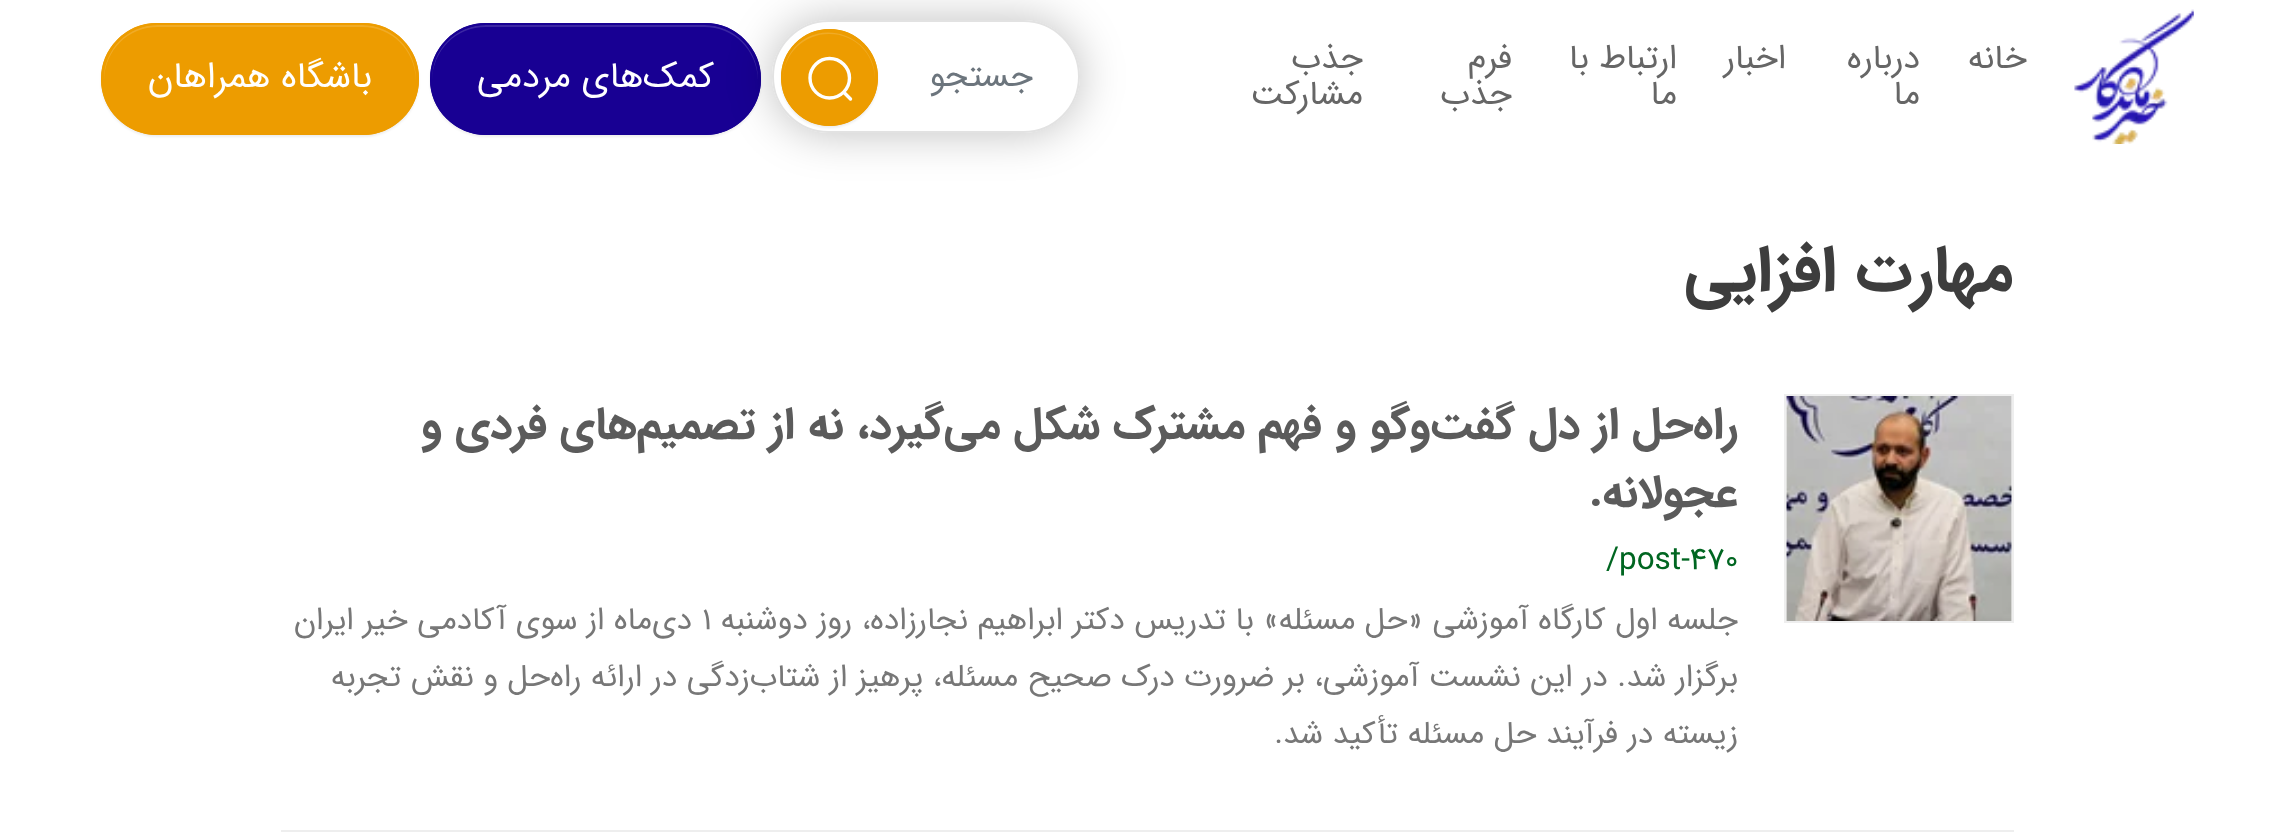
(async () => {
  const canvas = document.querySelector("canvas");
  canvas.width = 2291;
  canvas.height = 838;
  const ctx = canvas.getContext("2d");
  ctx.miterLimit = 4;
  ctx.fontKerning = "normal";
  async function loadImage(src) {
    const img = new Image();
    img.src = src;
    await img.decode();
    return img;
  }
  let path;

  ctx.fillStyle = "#ffffff";
  ctx.fillRect(0, 0, 2291, 838);
  ctx.drawImage(await loadImage("img/1.png"), 2074, 9, 120, 135);
  ctx.fillStyle = "rgba(0, 0, 0, 0.07)";
  ctx.filter = "blur(1px)";
  ctx.beginPath();
  ctx.roundRect(430, 25, 331, 112, 56);
  ctx.fill();
  ctx.filter = "none";
  ctx.fillStyle = "#180093";
  ctx.beginPath();
  ctx.roundRect(430, 23, 331, 112, 56);
  ctx.fill();
  ctx.fillStyle = "#3b26a3";
  path = new Path2D("M486 27H704C734 27 757 50 758 80V79C758 49 734 25 704 25H486C456 25 432 49 432 79V80C433 50 456 27 486 27Z");
  ctx.fill(path);
  ctx.beginPath();
  ctx.roundRect(431, 24, 329, 110, 55);
  ctx.strokeStyle = "#180093";
  ctx.lineWidth = 2;
  ctx.stroke();
  ctx.save();
  path = new Path2D("M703 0H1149V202H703ZM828.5 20H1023.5C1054.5 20 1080 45.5 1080 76.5C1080 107.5 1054.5 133 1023.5 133H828.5C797.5 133 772 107.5 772 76.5C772 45.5 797.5 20 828.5 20Z");
  ctx.clip(path, "evenodd");
  ctx.fillStyle = "rgba(0, 0, 0, 0.25)";
  ctx.filter = "blur(22.5px)";
  ctx.beginPath();
  ctx.roundRect(772, 20, 308, 113, 56.5);
  ctx.fill();
  ctx.filter = "none";
  ctx.restore();
  ctx.beginPath();
  ctx.roundRect(773, 21, 306, 111, 55.5);
  ctx.strokeStyle = "#e2e2e2";
  ctx.stroke();
  ctx.fillStyle = "rgba(0, 0, 0, 0.07)";
  ctx.filter = "blur(1px)";
  ctx.beginPath();
  ctx.roundRect(781, 32, 97, 96, 48);
  ctx.fill();
  ctx.filter = "none";
  ctx.fillStyle = "#ed9c00";
  ctx.beginPath();
  ctx.arc(829.5, 77.5, 48.5, 0, Math.PI * 2);
  ctx.fill();
  ctx.fillStyle = "#f0ab26";
  path = new Path2D("M829 34C855 34 874 53 875 79C876 34 816 15 791 52C786 60 783 70 783 79C784 53 804 34 829 34Z");
  ctx.fill(path);
  ctx.beginPath();
  ctx.arc(829.5, 77.5, 47.5, 0, Math.PI * 2);
  ctx.strokeStyle = "#ed9c00";
  ctx.stroke();
  path = new Path2D("M829.5 98C840.5 98 849.5 89 849.5 78C849.5 67.5 840.5 58.5 829.5 58.5C819 58.5 810 67.5 810 78C810 89 819 98 829.5 98Z");
  ctx.strokeStyle = "#ffffff";
  ctx.lineWidth = 3.4;
  ctx.lineCap = "round";
  ctx.stroke(path);
  path = new Path2D("M844 92.5L850.5 99");
  ctx.lineJoin = "round";
  ctx.stroke(path);
  ctx.fillStyle = "rgba(0, 0, 0, 0.07)";
  ctx.filter = "blur(1px)";
  ctx.beginPath();
  ctx.roundRect(101, 25, 318, 112, 56);
  ctx.fill();
  ctx.filter = "none";
  ctx.fillStyle = "#ed9c00";
  ctx.beginPath();
  ctx.roundRect(101, 23, 318, 112, 56);
  ctx.fill();
  ctx.fillStyle = "#f0ab26";
  path = new Path2D("M158 27H362C392 27 415 50 416 80V79C416 49 392 25 362 25H158C128 25 104 49 104 79V80C105 50 128 27 158 27Z");
  ctx.fill(path);
  ctx.beginPath();
  ctx.roundRect(102, 24, 316, 110, 55);
  ctx.strokeStyle = "#ed9c00";
  ctx.lineWidth = 2;
  ctx.lineJoin = "miter";
  ctx.stroke();
  ctx.strokeStyle = "#eeeeee";
  ctx.strokeRect(1785, 395, 228, 227);
  ctx.drawImage(await loadImage("img/2.png"), 1786, 396, 226, 225);
  ctx.fillStyle = "#eeeeee";
  ctx.fillRect(281, 830, 1733, 2);
  ctx.direction = "rtl";
  ctx.font = "34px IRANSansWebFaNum";
  ctx.fillStyle = "#666666";
  for (const [text, x, y] of [
    ["خانه", 2027, 68],
    ["درباره", 1920, 68],
    ["ما", 1920, 104],
    ["اخبار", 1786, 68],
    ["ارتباط با", 1677, 68],
    ["ما", 1677, 104],
    ["فرم", 1512, 68],
    ["جذب", 1512, 104],
    ["جذب", 1363, 68],
    ["مشارکت", 1363, 104],
  ]) {
    ctx.fillText(text, x, y);
  }
  ctx.fillStyle = "#6c757d";
  ctx.fillText("جستجو", 1033, 86);
  ctx.font = "36px IRANSansWebFaNum";
  ctx.fillStyle = "#ffffff";
  ctx.fillText("کمک‌های مردمی", 714, 87);
  ctx.fillText("باشگاه همراهان", 372, 87);
  ctx.font = "bold 64.75px IRANSansWebFaNum";
  ctx.fillStyle = "#3d3d3d";
  ctx.fillText("مهارت افزایی", 2013, 290);
  ctx.font = "bold 45px IRANSansWebFaNum";
  ctx.fillStyle = "#5b5b5b";
  ctx.fillText("راه‌حل از دل گفت‌وگو و فهم مشترک شکل می‌گیرد، نه از تصمیم‌های فردی و", 1738, 438);
  ctx.fillText("عجولانه.", 1738, 506);
  ctx.direction = "ltr";
  ctx.font = "31.5px IRANSansWebFaNum";
  ctx.fillStyle = "#006621";
  ctx.fillText("/post-470", 1606, 569);
  ctx.direction = "rtl";
  ctx.fillStyle = "#777777";
  ctx.fillText("جلسه اول کارگاه آموزشی «حل مسئله» با تدریس دکتر ابراهیم نجارزاده، روز دوشنبه", 1738, 629);
  ctx.direction = "ltr";
  ctx.fillText("۱", 702, 629);
  ctx.direction = "rtl";
  for (const [text, x, y] of [
    ["دی‌ماه از سوی آکادمی خیر ایران", 692, 629],
    ["برگزار شد. در این نشست آموزشی، بر ضرورت درک صحیح مسئله، پرهیز از شتاب‌زدگی در ارائه راه‌حل و نقش تجربه", 1738, 686],
    ["زیسته در فرآیند حل مسئله تأکید شد.", 1738, 743],
  ]) {
    ctx.fillText(text, x, y);
  }
})();
